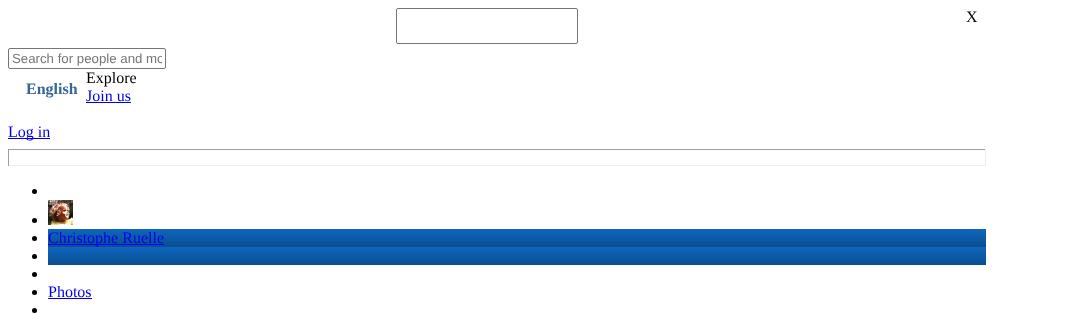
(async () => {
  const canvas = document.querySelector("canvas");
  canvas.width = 1087;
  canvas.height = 314;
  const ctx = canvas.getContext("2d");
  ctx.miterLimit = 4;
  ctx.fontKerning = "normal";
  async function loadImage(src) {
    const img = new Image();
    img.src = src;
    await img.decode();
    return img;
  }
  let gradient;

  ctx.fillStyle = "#ffffff";
  ctx.fillRect(0, 0, 1087, 314);
  ctx.beginPath();
  ctx.roundRect(396.5, 8.5, 181, 35, 1.5);
  ctx.strokeStyle = "#767676";
  ctx.stroke();
  ctx.beginPath();
  ctx.roundRect(8.5, 48.5, 157, 20, 1.5);
  ctx.stroke();
  for (const [x, y, w, h, color] of [
    [86, 102, 45, 1, "#0000ee"],
    [8, 138, 42, 1, "#0000ee"],
    [8, 149, 978, 1, "#9f9f9f"],
    [985, 149, 1, 17, "#eeeeee"],
    [8, 165, 978, 1, "#eeeeee"],
    [8, 149, 1, 17, "#9f9f9f"],
  ]) {
    ctx.fillStyle = color;
    ctx.fillRect(x, y, w, h);
  }
  ctx.fillStyle = "#000000";
  ctx.beginPath();
  ctx.arc(34.5, 191.5, 2.5, 0, Math.PI * 2);
  ctx.fill();
  ctx.beginPath();
  ctx.arc(34.5, 220.5, 2.5, 0, Math.PI * 2);
  ctx.fill();
  ctx.drawImage(await loadImage("img/1.png"), 48, 200, 25, 25);
  gradient = ctx.createLinearGradient(517, 229, 517, 247);
  gradient.addColorStop(0, "#0e67bf");
  gradient.addColorStop(1, "#0a4d8f");
  ctx.fillStyle = gradient;
  ctx.fillRect(48, 229, 938, 18);
  ctx.fillStyle = "#000000";
  ctx.beginPath();
  ctx.arc(34.5, 238.5, 2.5, 0, Math.PI * 2);
  ctx.fill();
  ctx.fillStyle = "#0000ee";
  ctx.fillRect(48, 244, 116, 1);
  gradient = ctx.createLinearGradient(517, 247, 517, 265);
  gradient.addColorStop(0, "#0e67bf");
  gradient.addColorStop(1, "#0a4d8f");
  ctx.fillStyle = gradient;
  ctx.fillRect(48, 247, 938, 18);
  ctx.fillStyle = "#000000";
  ctx.beginPath();
  ctx.arc(34.5, 256.5, 2.5, 0, Math.PI * 2);
  ctx.fill();
  ctx.beginPath();
  ctx.arc(34.5, 274.5, 2.5, 0, Math.PI * 2);
  ctx.fill();
  ctx.beginPath();
  ctx.arc(34.5, 292.5, 2.5, 0, Math.PI * 2);
  ctx.fill();
  ctx.fillStyle = "#0000ee";
  ctx.fillRect(48, 298, 44, 1);
  ctx.fillStyle = "#000000";
  ctx.beginPath();
  ctx.arc(34.5, 310.5, 2.5, 0, Math.PI * 2);
  ctx.fill();
  ctx.font = "16px Liberation Serif";
  ctx.fillText("X", 966, 22);
  ctx.save();
  ctx.beginPath();
  ctx.rect(12, 51, 150, 15);
  ctx.clip();
  ctx.font = "13.25px Liberation Sans";
  ctx.fillStyle = "#757575";
  ctx.fillText("Search for people and mo", 12, 63);
  ctx.restore();
  ctx.fillText("Explore", 86, 83);
  ctx.font = "bold 16px Liberation Serif";
  ctx.fillStyle = "#336699";
  ctx.fillText("English", 26, 94);
  ctx.font = "16px Liberation Serif";
  ctx.fillStyle = "#0000ee";
  for (const [text, x, y] of [
    ["Join us", 86, 101],
    ["Log in", 8, 137],
    ["Christophe Ruelle", 48, 243],
    ["Photos", 48, 297],
  ]) {
    ctx.fillText(text, x, y);
  }
})();
